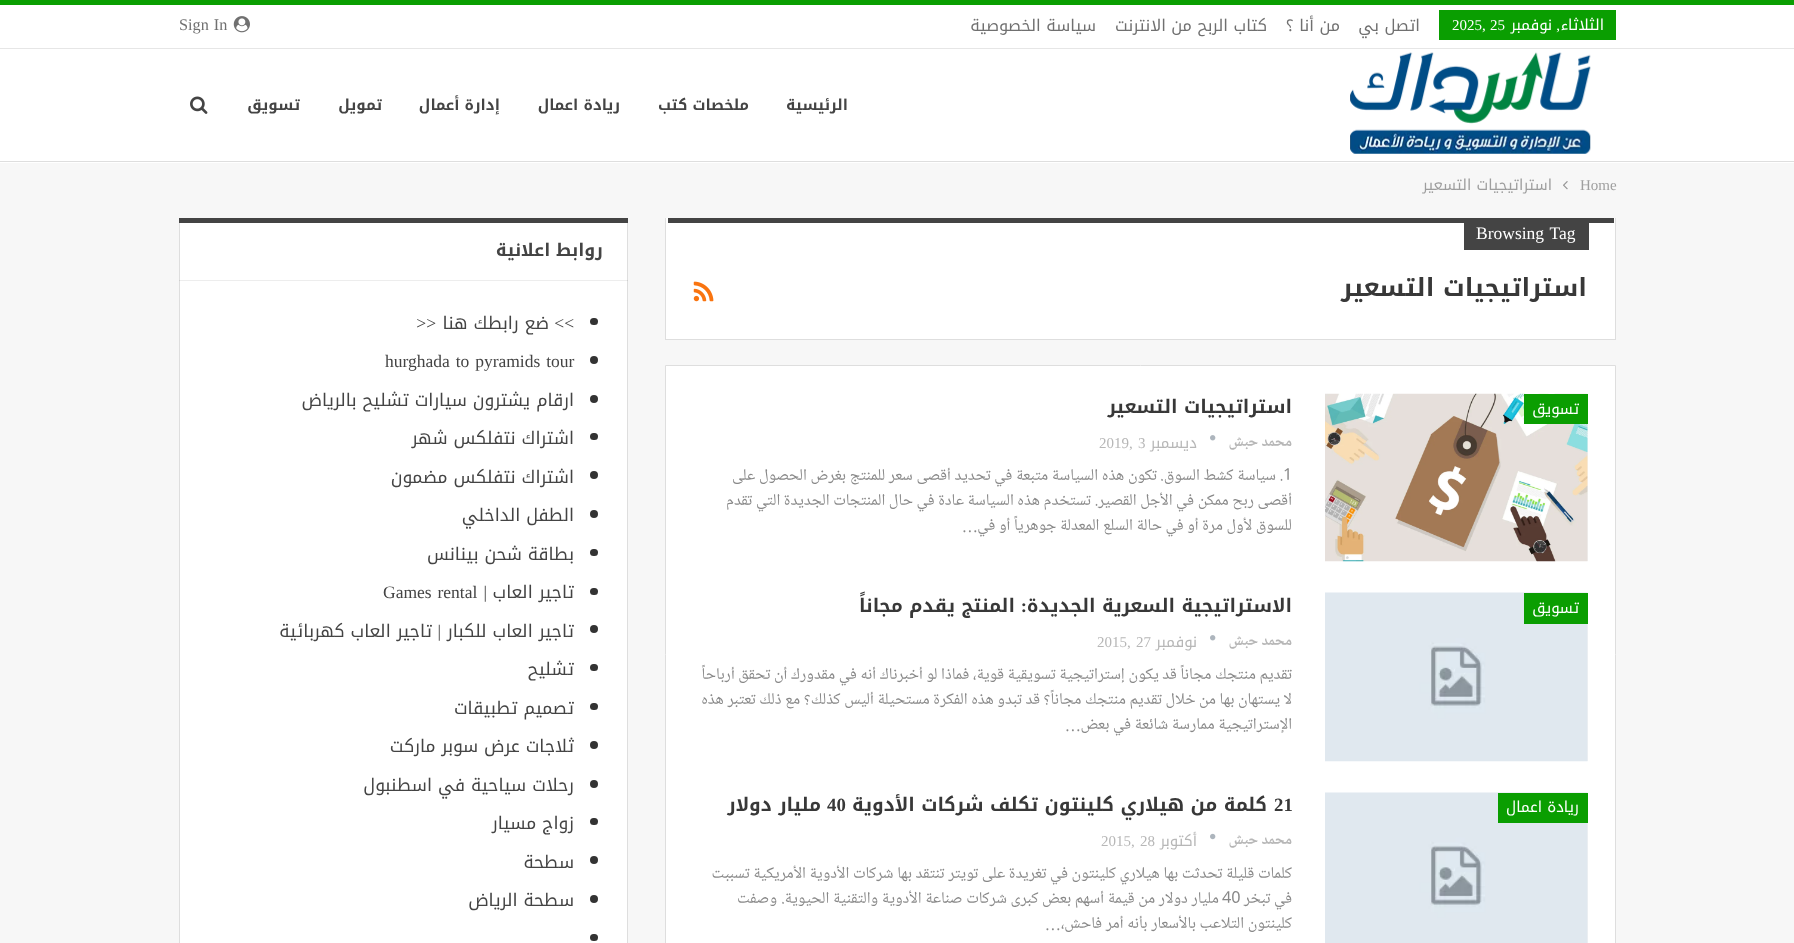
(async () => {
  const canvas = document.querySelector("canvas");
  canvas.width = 1794;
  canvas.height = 943;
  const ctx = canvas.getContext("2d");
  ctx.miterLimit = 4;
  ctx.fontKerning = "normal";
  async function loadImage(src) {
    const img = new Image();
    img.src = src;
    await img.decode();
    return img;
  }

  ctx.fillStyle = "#f7f7f7";
  ctx.fillRect(0, 0, 1794, 943);
  for (const [x, y, w, h, color] of [
    [0, 0, 1794, 5, "#0a9e01"],
    [0, 5, 1794, 158, "#ffffff"],
    [0, 161, 1794, 1, "#dedede"],
    [0, 48, 1794, 1, "#e6e6e6"],
    [1439, 10, 177, 30, "#0a9e01"],
  ]) {
    ctx.fillStyle = color;
    ctx.fillRect(x, y, w, h);
  }
  ctx.drawImage(await loadImage("img/1.png"), 233, 16, 17, 17);
  ctx.drawImage(await loadImage("img/2.png"), 1350, 52, 241, 102);
  ctx.drawImage(await loadImage("img/3.png"), 190, 96, 18, 18);
  ctx.drawImage(await loadImage("img/4.png"), 1563, 181, 5, 9);
  for (const [x, y, w, h, color] of [
    [666, 218, 949, 121, "#ffffff"],
    [1615, 218, 1, 122, "#dedede"],
    [665, 339, 951, 1, "#dedede"],
    [665, 218, 1, 122, "#dedede"],
    [668, 218, 946, 5, "#444444"],
    [1464, 223, 125, 27, "#444444"],
  ]) {
    ctx.fillStyle = color;
    ctx.fillRect(x, y, w, h);
  }
  ctx.drawImage(await loadImage("img/5.png"), 693, 281, 21, 21);
  ctx.fillStyle = "#ffffff";
  ctx.beginPath();
  ctx.rect(665.5, 365.5, 950, 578);
  ctx.fill();
  ctx.strokeStyle = "#dedede";
  ctx.stroke();
  ctx.fillStyle = "#f5f5f5";
  ctx.fillRect(1587, 424, 1, 137);
  ctx.drawImage(await loadImage("img/6.png"), 1325, 393, 263, 169);
  ctx.fillStyle = "#0a9e01";
  ctx.fillRect(1524, 394, 64, 30);
  ctx.drawImage(await loadImage("img/7.png"), 1210, 435, 6, 6);
  ctx.fillStyle = "#f5f5f5";
  ctx.fillRect(1587, 624, 1, 137);
  ctx.drawImage(await loadImage("img/8.png"), 1325, 592, 263, 170);
  ctx.fillStyle = "#0a9e01";
  ctx.fillRect(1524, 593, 64, 31);
  ctx.drawImage(await loadImage("img/7.png"), 1210, 635, 6, 6);
  ctx.fillStyle = "#f5f5f5";
  ctx.fillRect(1587, 823, 1, 120);
  ctx.drawImage(await loadImage("img/9.png"), 1325, 792, 263, 151);
  ctx.fillStyle = "#0a9e01";
  ctx.fillRect(1498, 793, 90, 30);
  ctx.drawImage(await loadImage("img/10.png"), 1210, 833, 6, 7);
  ctx.fillStyle = "#ffffff";
  ctx.fillRect(180, 223, 447, 720);
  ctx.strokeRect(179.5, 218.5, 448, 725);
  ctx.fillStyle = "#444444";
  ctx.fillRect(179, 218, 449, 5);
  ctx.fillStyle = "rgba(0, 0, 0, 0.07)";
  ctx.fillRect(179, 280, 449, 1);
  ctx.fillStyle = "#333333";
  ctx.beginPath();
  ctx.roundRect(590, 318, 8, 7, 3.5);
  ctx.fill();
  ctx.beginPath();
  ctx.arc(594, 360, 4, 0, Math.PI * 2);
  ctx.fill();
  ctx.beginPath();
  ctx.arc(594, 399, 4, 0, Math.PI * 2);
  ctx.fill();
  ctx.beginPath();
  ctx.roundRect(590, 433, 8, 7, 3.5);
  ctx.fill();
  ctx.beginPath();
  ctx.arc(594, 475, 4, 0, Math.PI * 2);
  ctx.fill();
  ctx.beginPath();
  ctx.arc(594, 514, 4, 0, Math.PI * 2);
  ctx.fill();
  ctx.beginPath();
  ctx.roundRect(590, 549, 8, 7, 3.5);
  ctx.fill();
  ctx.beginPath();
  ctx.roundRect(590, 588, 8, 7, 3.5);
  ctx.fill();
  ctx.beginPath();
  ctx.arc(594, 629, 4, 0, Math.PI * 2);
  ctx.fill();
  ctx.beginPath();
  ctx.roundRect(590, 664, 8, 7, 3.5);
  ctx.fill();
  ctx.beginPath();
  ctx.roundRect(590, 703, 8, 7, 3.5);
  ctx.fill();
  ctx.beginPath();
  ctx.arc(594, 745, 4, 0, Math.PI * 2);
  ctx.fill();
  ctx.beginPath();
  ctx.arc(594, 784, 4, 0, Math.PI * 2);
  ctx.fill();
  ctx.beginPath();
  ctx.roundRect(590, 818, 8, 7, 3.5);
  ctx.fill();
  ctx.beginPath();
  ctx.arc(594, 860, 4, 0, Math.PI * 2);
  ctx.fill();
  ctx.beginPath();
  ctx.arc(594, 899, 4, 0, Math.PI * 2);
  ctx.fill();
  ctx.beginPath();
  ctx.roundRect(590, 934, 8, 7, 3.5);
  ctx.fill();
  ctx.direction = "rtl";
  ctx.font = "15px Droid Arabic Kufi";
  ctx.fillStyle = "#ffffff";
  ctx.fillText("الثلاثاء", 1604, 30);
  ctx.font = "15px Liberation Serif";
  ctx.fillText(",", 1560, 30);
  ctx.font = "15px Droid Arabic Kufi";
  ctx.fillText("نوفمبر", 1552, 30);
  ctx.direction = "ltr";
  ctx.font = "15px Liberation Serif";
  ctx.fillText("25", 1490, 30);
  ctx.fillText("2025,", 1452, 30);
  ctx.direction = "rtl";
  ctx.font = "16.25px Droid Arabic Kufi";
  ctx.fillStyle = "#707070";
  for (const [text, x, y] of [
    ["اتصل بي", 1420, 31],
    ["من أنا ؟", 1340, 31],
    ["كتاب الربح من الانترنت", 1267, 31],
    ["سياسة الخصوصية", 1096, 31],
  ]) {
    ctx.fillText(text, x, y);
  }
  ctx.wordSpacing = "1px";
  ctx.direction = "ltr";
  ctx.font = "16.25px Liberation Serif";
  ctx.fillText("Sign In", 179, 30);
  ctx.wordSpacing = "0px";
  ctx.direction = "rtl";
  ctx.font = "bold 15px Droid Arabic Kufi";
  ctx.fillStyle = "#444444";
  for (const [text, x, y] of [
    ["الرئيسية", 848, 110],
    ["ملخصات كتب", 749, 110],
    ["ريادة اعمال", 620, 110],
    ["إدارة أعمال", 500, 110],
    ["تمويل", 382, 110],
    ["تسويق", 300, 110],
  ]) {
    ctx.fillText(text, x, y);
  }
  ctx.direction = "ltr";
  ctx.font = "15px Liberation Serif";
  ctx.fillStyle = "#9e9e9e";
  ctx.fillText("Home", 1580, 190);
  ctx.direction = "rtl";
  ctx.font = "15px Droid Arabic Kufi";
  ctx.fillText("استراتيجيات التسعير", 1552, 190);
  ctx.wordSpacing = "1.5px";
  ctx.direction = "ltr";
  ctx.font = "17.5px Liberation Serif";
  ctx.fillStyle = "#ffffff";
  ctx.fillText("Browsing Tag", 1476, 239);
  ctx.wordSpacing = "0px";
  ctx.direction = "rtl";
  ctx.font = "bold 25px Droid Arabic Kufi";
  ctx.fillStyle = "#383838";
  ctx.fillText("استراتيجيات التسعير", 1587, 296);
  ctx.font = "15px Droid Arabic Kufi";
  ctx.fillStyle = "#ffffff";
  ctx.fillText("تسويق", 1579, 414);
  ctx.font = "bold 18.75px Droid Arabic Kufi";
  ctx.fillStyle = "#383838";
  ctx.fillText("استراتيجيات التسعير", 1292, 413);
  ctx.font = "bold 15px Noto Naskh Arabic UI";
  ctx.fillStyle = "#b7b7b7";
  ctx.fillText("محمد حبش", 1292, 448);
  ctx.font = "15px Droid Arabic Kufi";
  ctx.fillText("ديسمبر", 1197, 448);
  ctx.direction = "ltr";
  ctx.font = "15px Liberation Serif";
  ctx.fillText("3", 1138, 448);
  ctx.fillText("2019,", 1099, 448);
  ctx.font = "16.25px Noto Naskh Arabic UI";
  ctx.fillStyle = "#888888";
  ctx.fillText("1", 1283, 482);
  ctx.direction = "rtl";
  for (const [text, x, y] of [
    [". سياسة كشط السوق.", 1283, 482],
    ["تكون هذه السياسة متبعة في تحديد أقصى سعر للمنتج بغرض الحصول على", 1157, 482],
    ["أقصى ربح ممكن في الأجل القصير. تستخدم هذه السياسة عادة في حال المنتجات الجديدة التي تقدم", 1292, 507],
    ["للسوق لأول مرة أو في حالة السلع المعدلة جوهرياً أو في", 1292, 532],
  ]) {
    ctx.fillText(text, x, y);
  }
  ctx.font = "16.25px Liberation Serif";
  ctx.fillText("…", 978, 532);
  ctx.font = "15px Droid Arabic Kufi";
  ctx.fillStyle = "#ffffff";
  ctx.fillText("تسويق", 1579, 613);
  ctx.font = "bold 18.75px Droid Arabic Kufi";
  ctx.fillStyle = "#383838";
  ctx.fillText("الاستراتيجية السعرية الجديدة", 1292, 612);
  ctx.font = "bold 18.75px Liberation Serif";
  ctx.fillText(":", 1027, 612);
  ctx.font = "bold 18.75px Droid Arabic Kufi";
  ctx.fillText("المنتج يقدم مجاناً", 1015, 612);
  ctx.font = "bold 15px Noto Naskh Arabic UI";
  ctx.fillStyle = "#b7b7b7";
  ctx.fillText("محمد حبش", 1292, 647);
  ctx.font = "15px Droid Arabic Kufi";
  ctx.fillText("نوفمبر", 1197, 647);
  ctx.direction = "ltr";
  ctx.font = "15px Liberation Serif";
  ctx.fillText("27", 1136, 647);
  ctx.fillText("2015,", 1097, 647);
  ctx.direction = "rtl";
  ctx.font = "16.25px Noto Naskh Arabic UI";
  ctx.fillStyle = "#888888";
  for (const [text, x, y] of [
    ["تقديم منتجك مجاناً قد يكون إستراتيجية تسويقية قوية، فماذا لو أخبرناك أنه في مقدورك أن تحقق أرباحاً", 1292, 681],
    ["لا يستهان بها من خلال تقديم منتجك مجاناً؟ قد تبدو هذه الفكرة مستحيلة أليس كذلك؟ مع ذلك تعتبر هذه", 1292, 706],
    ["الإستراتيجية ممارسة شائعة في بعض", 1292, 731],
  ]) {
    ctx.fillText(text, x, y);
  }
  ctx.font = "16.25px Liberation Serif";
  ctx.fillText("…", 1081, 731);
  ctx.font = "15px Droid Arabic Kufi";
  ctx.fillStyle = "#ffffff";
  ctx.fillText("ريادة اعمال", 1579, 812);
  ctx.direction = "ltr";
  ctx.font = "bold 18.75px Liberation Serif";
  ctx.fillStyle = "#383838";
  ctx.fillText("21", 1274, 811);
  ctx.direction = "rtl";
  ctx.font = "bold 18.75px Droid Arabic Kufi";
  ctx.fillText("كلمة من هيلاري كلينتون تكلف شركات الأدوية", 1267, 811);
  ctx.direction = "ltr";
  ctx.font = "bold 18.75px Liberation Serif";
  ctx.fillText("40", 827, 811);
  ctx.direction = "rtl";
  ctx.font = "bold 18.75px Droid Arabic Kufi";
  ctx.fillText("مليار دولار", 821, 811);
  ctx.font = "bold 15px Noto Naskh Arabic UI";
  ctx.fillStyle = "#b7b7b7";
  ctx.fillText("محمد حبش", 1292, 846);
  ctx.font = "15px Droid Arabic Kufi";
  ctx.fillText("أكتوبر", 1197, 846);
  ctx.direction = "ltr";
  ctx.font = "15px Liberation Serif";
  ctx.fillText("28", 1140, 846);
  ctx.fillText("2015,", 1101, 846);
  ctx.direction = "rtl";
  ctx.font = "16.25px Noto Naskh Arabic UI";
  ctx.fillStyle = "#888888";
  ctx.fillText("كلمات قليلة تحدثت بها هيلاري كلينتون في تغريدة على تويتر تنتقد بها شركات الأدوية الأمريكية تسببت", 1292, 880);
  ctx.fillText("في تبخر", 1292, 905);
  ctx.direction = "ltr";
  ctx.fillText("40", 1222, 905);
  ctx.direction = "rtl";
  for (const [text, x, y] of [
    ["مليار دولار من قيمة أسهم بعض كبرى شركات صناعة الأدوية والتقنية الحيوية.", 1219, 905],
    ["وصفت", 777, 905],
    ["كلينتون التلاعب بالأسعار بأنه أمر فاحش،", 1292, 930],
  ]) {
    ctx.fillText(text, x, y);
  }
  ctx.font = "16.25px Liberation Serif";
  ctx.fillText("…", 1061, 930);
  ctx.font = "bold 17.5px Droid Arabic Kufi";
  ctx.fillStyle = "#444444";
  ctx.fillText("روابط اعلانية", 603, 256);
  ctx.font = "17.5px Liberation Serif";
  ctx.fillText(">>", 574, 329);
  ctx.font = "17.5px Droid Arabic Kufi";
  ctx.fillText("ضع رابطك هنا", 549, 329);
  ctx.font = "17.5px Liberation Serif";
  ctx.fillText("<<", 436, 329);
  ctx.wordSpacing = "1.5px";
  ctx.direction = "ltr";
  ctx.fillText("hurghada to pyramids tour", 385, 367);
  ctx.wordSpacing = "0px";
  ctx.direction = "rtl";
  ctx.font = "17.5px Droid Arabic Kufi";
  for (const [text, x, y] of [
    ["ارقام يشترون سيارات تشليح بالرياض", 574, 406],
    ["اشتراك نتفلكس شهر", 574, 444],
    ["اشتراك نتفلكس مضمون", 574, 483],
    ["الطفل الداخلي", 574, 521],
    ["بطاقة شحن بينانس", 574, 560],
    ["تاجير العاب", 574, 598],
  ]) {
    ctx.fillText(text, x, y);
  }
  ctx.font = "17.5px Liberation Serif";
  ctx.fillText("|", 487, 598);
  ctx.wordSpacing = "1.5px";
  ctx.direction = "ltr";
  ctx.fillText("Games rental", 383, 598);
  ctx.wordSpacing = "0px";
  ctx.direction = "rtl";
  ctx.font = "17.5px Droid Arabic Kufi";
  ctx.fillText("تاجير العاب للكبار", 574, 637);
  ctx.font = "17.5px Liberation Serif";
  ctx.fillText("|", 441, 637);
  ctx.font = "17.5px Droid Arabic Kufi";
  for (const [text, x, y] of [
    ["تاجير العاب كهربائية", 432, 637],
    ["تشليح", 574, 675],
    ["تصميم تطبيقات", 574, 714],
    ["ثلاجات عرض سوبر ماركت", 574, 752],
    ["رحلات سياحية في اسطنبول", 574, 791],
    ["زواج مسيار", 574, 829],
    ["سطحة", 574, 868],
    ["سطحة الرياض", 574, 906],
  ]) {
    ctx.fillText(text, x, y);
  }
})();
